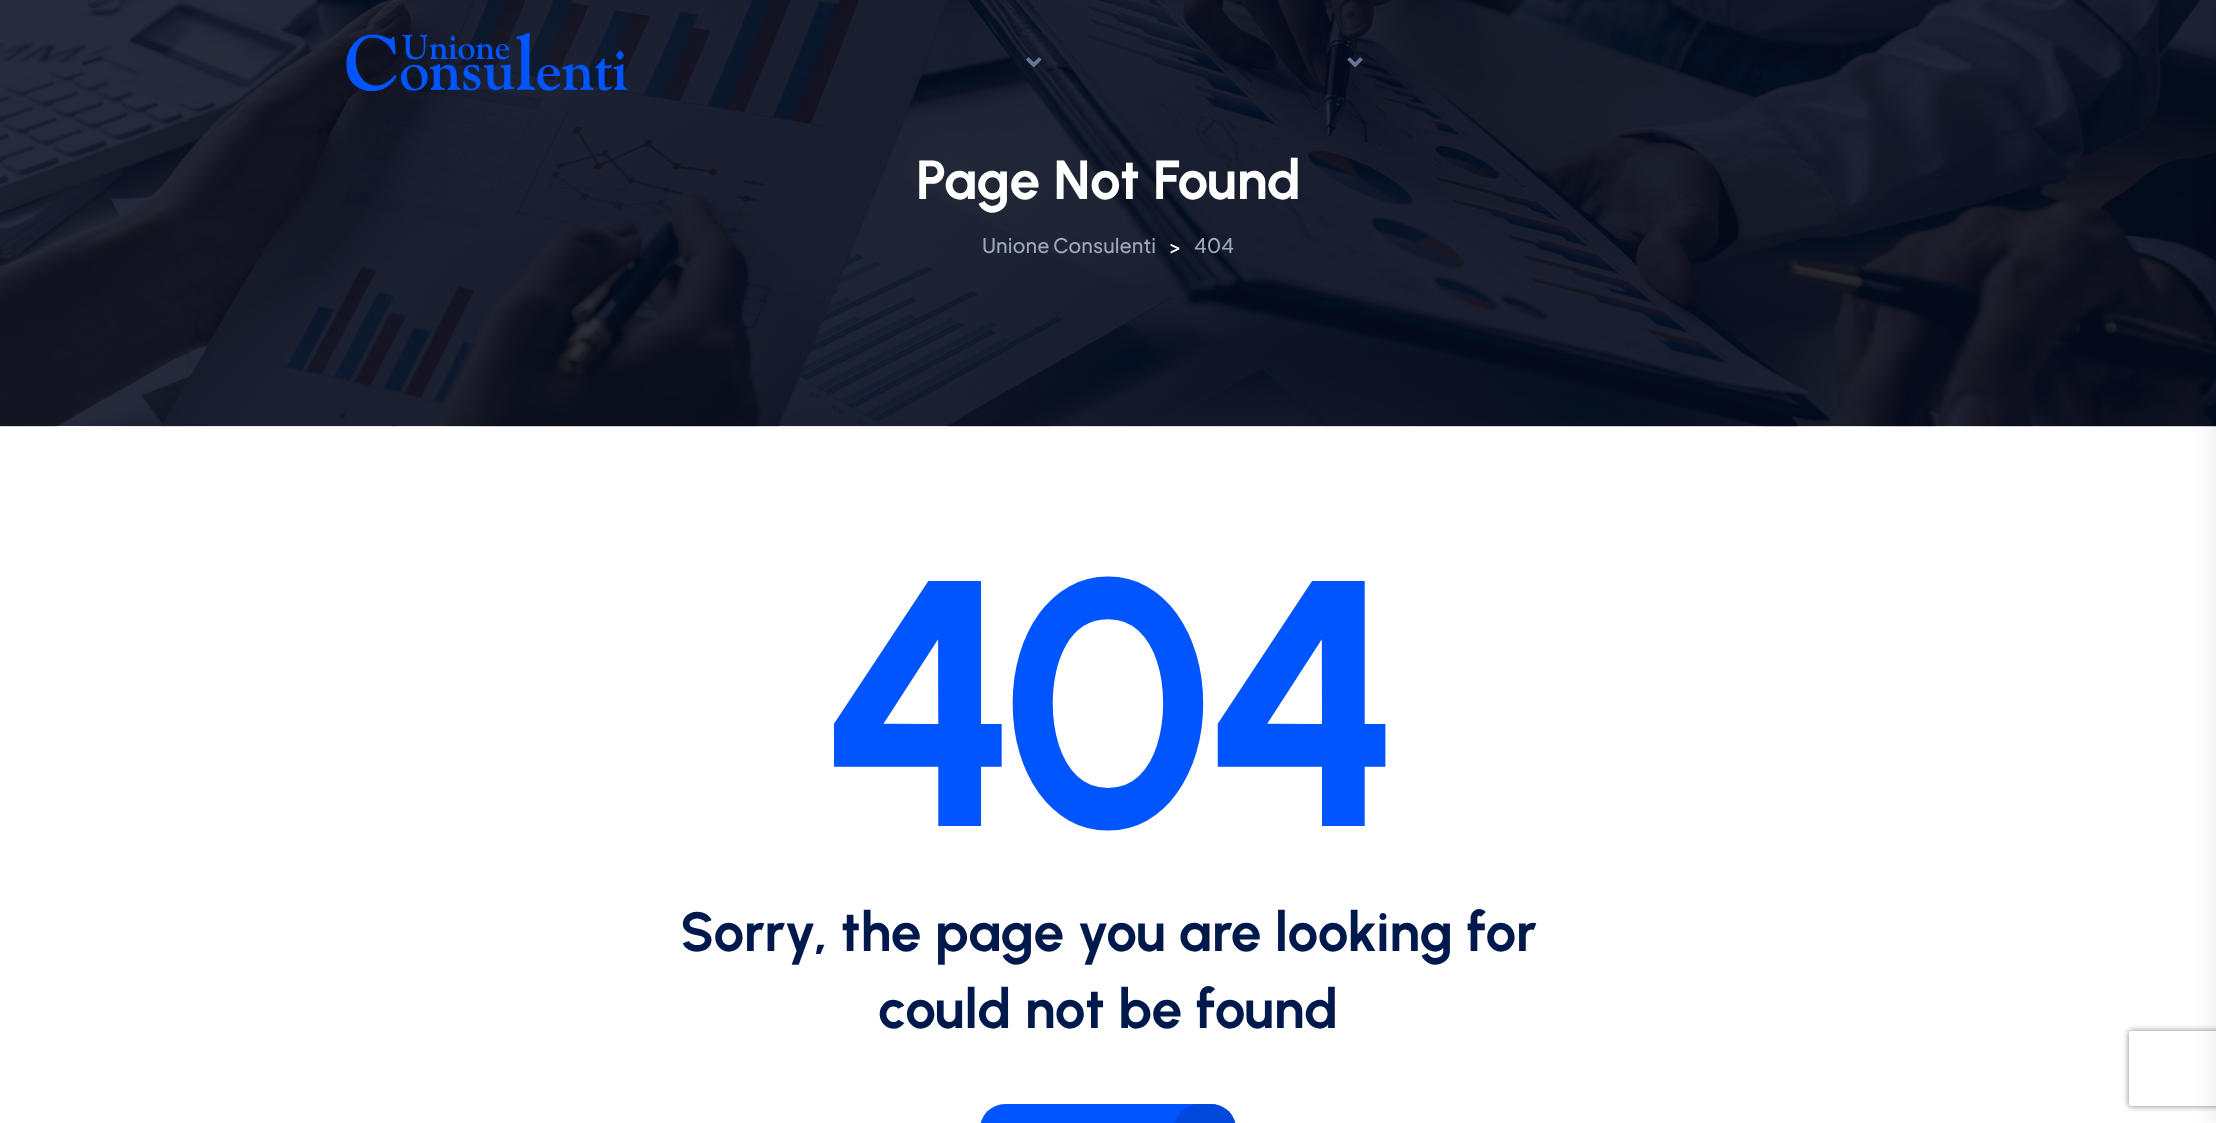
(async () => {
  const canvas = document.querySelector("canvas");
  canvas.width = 2216;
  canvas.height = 1123;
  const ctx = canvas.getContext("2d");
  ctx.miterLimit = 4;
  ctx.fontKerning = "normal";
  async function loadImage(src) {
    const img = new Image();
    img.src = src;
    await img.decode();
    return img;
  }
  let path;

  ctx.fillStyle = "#ffffff";
  ctx.fillRect(0, 0, 2216, 1123);
  ctx.drawImage(await loadImage("img/4.png"), 0, 0, 2216, 427);
  ctx.drawImage(await loadImage("img/1.png"), 346, 33, 282, 58);
  ctx.drawImage(await loadImage("img/2.png"), 1026, 57, 16, 10);
  ctx.drawImage(await loadImage("img/3.png"), 1347, 57, 16, 10);
  ctx.fillStyle = "rgba(0, 0, 0, 0.06)";
  ctx.filter = "blur(9px)";
  ctx.beginPath();
  ctx.rect(2209, 0, 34, 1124);
  ctx.fill();
  ctx.filter = "none";
  ctx.fillStyle = "#0055ff";
  ctx.beginPath();
  ctx.roundRect(980, 1104, 256, 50, 31);
  ctx.fill();
  ctx.fillStyle = "#0049dc";
  ctx.beginPath();
  ctx.roundRect(1174, 1104, 62, 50, 31);
  ctx.fill();
  ctx.save();
  path = new Path2D("M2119 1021H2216V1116H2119ZM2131.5 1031H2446.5C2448 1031 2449 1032 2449 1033.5V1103.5C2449 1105 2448 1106 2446.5 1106H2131.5C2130 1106 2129 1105 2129 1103.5V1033.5C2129 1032 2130 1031 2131.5 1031Z");
  ctx.clip(path, "evenodd");
  ctx.fillStyle = "#808080";
  ctx.filter = "blur(3px)";
  ctx.beginPath();
  ctx.roundRect(2129, 1031, 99, 75, 2.5);
  ctx.fill();
  ctx.filter = "none";
  ctx.restore();
  ctx.font = "bold 55px Urbanist";
  ctx.fillStyle = "#ffffff";
  ctx.fillText("Page Not Found", 916, 199);
  ctx.font = "500 20px Plus Jakarta Sans";
  ctx.fillStyle = "#9fa9be";
  ctx.fillText("Unione Consulenti", 982, 253);
  ctx.fillStyle = "#ffffff";
  ctx.fillText(">", 1169, 254);
  ctx.fillStyle = "#9fa9be";
  ctx.fillText("404", 1194, 253);
  ctx.letterSpacing = "-10px";
  ctx.font = "bold 350px Urbanist";
  ctx.fillStyle = "#0055ff";
  ctx.fillText("404", 820, 826);
  ctx.letterSpacing = "0px";
  ctx.font = "bold 55px Urbanist";
  ctx.fillStyle = "#00194c";
  ctx.fillText("Sorry, the page you are looking for", 680, 951);
  ctx.fillText("could not be found", 878, 1028);
})();
